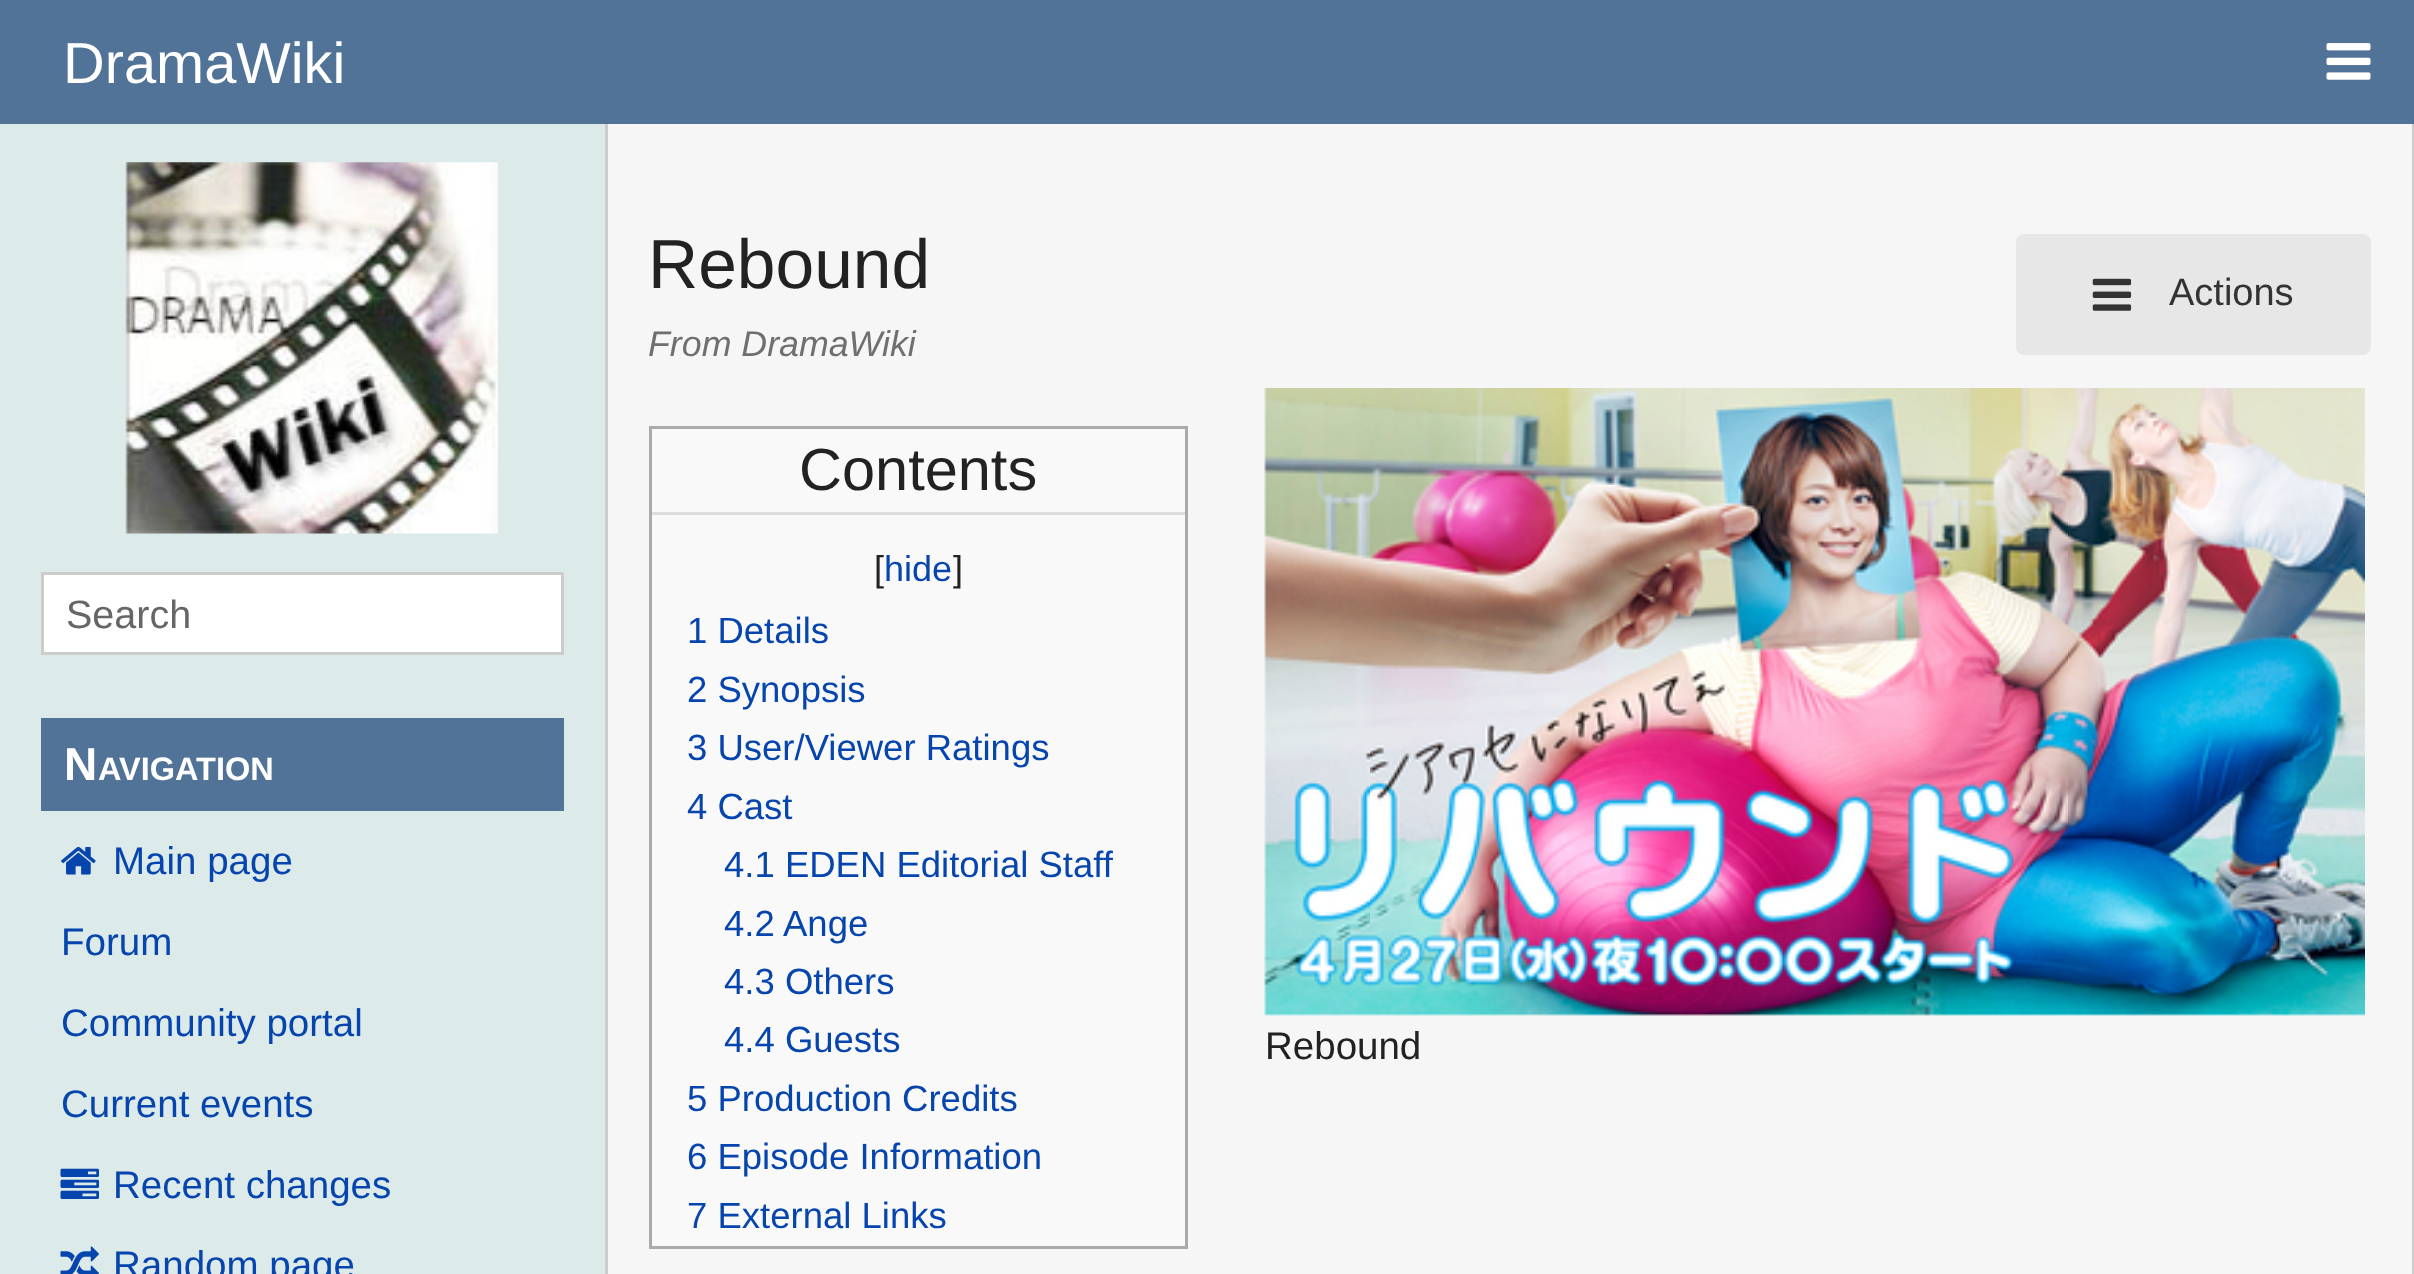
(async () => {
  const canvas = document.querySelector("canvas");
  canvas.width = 2414;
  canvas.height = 1274;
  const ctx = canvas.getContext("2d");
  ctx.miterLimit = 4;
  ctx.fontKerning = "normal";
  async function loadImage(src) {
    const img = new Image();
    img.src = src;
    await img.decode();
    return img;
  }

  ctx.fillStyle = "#dceaea";
  ctx.fillRect(0, 0, 2414, 1274);
  ctx.fillStyle = "#517398";
  ctx.fillRect(0, 0, 2414, 124);
  ctx.drawImage(await loadImage("img/1.png"), 2326, 43, 45, 37);
  ctx.drawImage(await loadImage("img/2.png"), 125, 162, 373, 372);
  ctx.fillStyle = "#ffffff";
  ctx.beginPath();
  ctx.rect(42.5, 573.5, 520, 80);
  ctx.fill();
  ctx.strokeStyle = "#cccccc";
  ctx.lineWidth = 3;
  ctx.stroke();
  ctx.fillStyle = "#517398";
  ctx.fillRect(41, 718, 523, 93);
  ctx.drawImage(await loadImage("img/3.png"), 61, 846, 35, 29);
  ctx.drawImage(await loadImage("img/4.png"), 60, 1168, 39, 31);
  ctx.drawImage(await loadImage("img/5.png"), 60, 1246, 39, 28);
  for (const [x, y, w, h, color] of [
    [608, 124, 1804, 1150, "#f6f6f6"],
    [2412, 124, 2, 1150, "#cccccc"],
    [605, 124, 3, 1150, "#cccccc"],
  ]) {
    ctx.fillStyle = color;
    ctx.fillRect(x, y, w, h);
  }
  ctx.fillStyle = "#f9f9f9";
  ctx.beginPath();
  ctx.rect(650.5, 427.5, 536, 820);
  ctx.fill();
  ctx.strokeStyle = "#aaaaaa";
  ctx.stroke();
  ctx.fillStyle = "#dddddd";
  ctx.fillRect(652, 512, 533, 3);
  ctx.drawImage(await loadImage("img/6.png"), 1264, 388, 1101, 628);
  ctx.fillStyle = "#e7e7e7";
  ctx.beginPath();
  ctx.roundRect(2016, 234, 355, 121, 8);
  ctx.fill();
  ctx.drawImage(await loadImage("img/7.png"), 2092, 278, 40, 33);
  ctx.font = "57.75px Liberation Sans";
  ctx.fillStyle = "#ffffff";
  ctx.fillText("DramaWiki", 63, 83);
  ctx.font = "39.5px Liberation Sans";
  ctx.fillStyle = "#666666";
  ctx.fillText("Search", 66, 628);
  ctx.font = "bold 46px Liberation Sans";
  ctx.fillStyle = "#ffffff";
  ctx.fillText("N", 64, 780);
  ctx.font = "bold 32.5px Liberation Sans";
  ctx.fillText("AVIGATION", 98, 780);
  ctx.font = "38.5px Liberation Sans";
  ctx.fillStyle = "#0645ad";
  for (const [text, x, y] of [
    ["Main page", 113, 874],
    ["Forum", 61, 955],
    ["Community portal", 61, 1036],
    ["Current events", 61, 1117],
    ["Recent changes", 113, 1198],
    ["Random page", 113, 1278],
  ]) {
    ctx.fillText(text, x, y);
  }
  ctx.font = "69.5px Liberation Sans";
  ctx.fillStyle = "#222222";
  ctx.fillText("Rebound", 648, 288);
  ctx.font = "italic 35.75px Liberation Sans";
  ctx.fillStyle = "#6f6f6f";
  ctx.fillText("From DramaWiki", 648, 356);
  ctx.font = "59.5px Liberation Sans";
  ctx.fillStyle = "#222222";
  ctx.fillText("Contents", 799, 490);
  ctx.font = "36px Liberation Sans";
  ctx.fillText("[", 874, 581);
  ctx.fillStyle = "#0645ad";
  ctx.fillText("hide", 884, 581);
  ctx.fillStyle = "#222222";
  ctx.fillText("]", 953, 581);
  ctx.font = "36.5px Liberation Sans";
  ctx.fillStyle = "#0645ad";
  for (const [text, x, y] of [
    ["1 Details", 687, 643],
    ["2 Synopsis", 687, 702],
    ["3 User/Viewer Ratings", 687, 760],
    ["4 Cast", 687, 819],
    ["4.1 EDEN Editorial Staff", 724, 877],
    ["4.2", 724, 936],
    ["Ange", 783, 936],
    ["4.3 Others", 724, 994],
    ["4.4 Guests", 724, 1052],
    ["5 Production Credits", 687, 1111],
    ["6 Episode Information", 687, 1169],
    ["7 External Links", 687, 1228],
  ]) {
    ctx.fillText(text, x, y);
  }
  ctx.font = "38.5px Liberation Sans";
  ctx.fillStyle = "#222222";
  ctx.fillText("Rebound", 1265, 1059);
  ctx.font = "38px Liberation Sans";
  ctx.fillStyle = "#333333";
  ctx.fillText("Actions", 2169, 305);
})();
